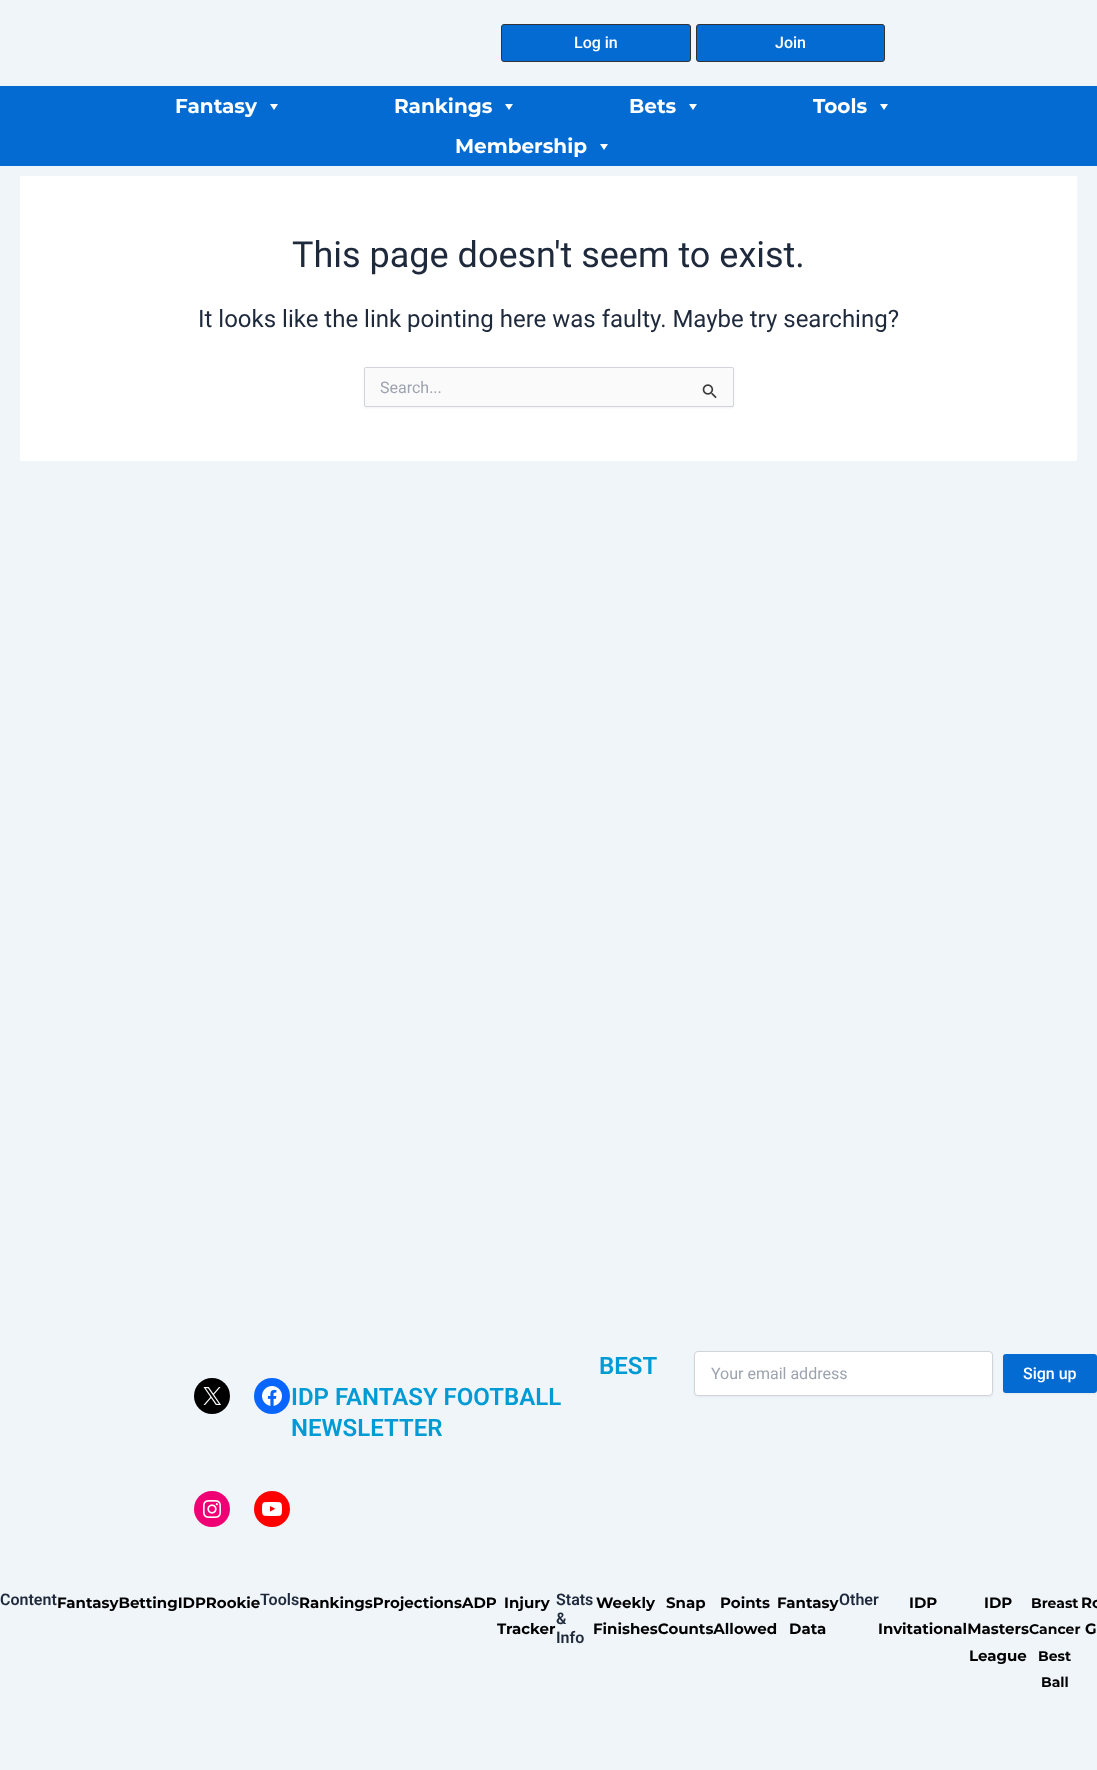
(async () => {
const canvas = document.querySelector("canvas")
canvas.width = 1097
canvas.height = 1770
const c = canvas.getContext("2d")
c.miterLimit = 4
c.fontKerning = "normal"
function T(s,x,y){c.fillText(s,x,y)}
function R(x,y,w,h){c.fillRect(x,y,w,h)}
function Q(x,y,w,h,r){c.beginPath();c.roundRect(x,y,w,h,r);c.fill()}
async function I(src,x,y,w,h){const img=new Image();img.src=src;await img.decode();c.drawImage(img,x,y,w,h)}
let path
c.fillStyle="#f0f5fa"
R(0,0,1097,1770)
c.fillStyle="#046bd2"
c.beginPath()
c.roundRect(501.5,24.5,189,37,2.5)
c.fill()
c.strokeStyle="#333"
c.stroke()
c.font="500 16px Roboto"
c.fillStyle="#fff"
T("Log in",574,48)
c.fillStyle="#046bd2"
c.beginPath()
c.roundRect(696.5,24.5,188,37,2.5)
c.fill()
c.stroke()
c.fillStyle="#fff"
T("Join",775,48)
c.fillStyle="#046bd2"
R(0,86,1097,80)
c.font="bold 20px Montserrat"
c.fillStyle="#fff"
T("Fantasy",175,113)
path = new Path2D("M278 104l-4 6l-4-6z")
c.fill(path)
T("Rankings",394,113)
path = new Path2D("M513 104l-4 6l-4-6z")
c.fill(path)
T("Bets",629,113)
path = new Path2D("M697 104l-4 6l-4-6z")
c.fill(path)
T("Tools",813,113)
path = new Path2D("M888 104l-4 6l-4-6z")
c.fill(path)
T("Membership",455,153)
path = new Path2D("M608 144l-4 6l-4-6z")
c.fill(path)
R(20,176,1057,285)
c.font="36px Roboto"
c.fillStyle="#1e293b"
T("This page doesn't seem to exist.",292,267)
c.font="24px Roboto"
T("It looks like the link pointing here was faulty. Maybe try searching?",198,327)
c.fillStyle="#0000000d"
c.filter="blur(1px)"
c.beginPath()
c.roundRect(364,368,370,40,2)
c.fill()
c.filter="none"
c.fillStyle="#fafafa"
c.beginPath()
c.roundRect(364.5,367.5,369,39,1.5)
c.fill()
c.strokeStyle="#d1d5db"
c.stroke()
c.font="16px Roboto"
c.fillStyle="#9ca3af"
T("Search...",380,393)
await I("1.png",702,384,15,15)
c.fillStyle="#000"
c.beginPath()
c.arc(212,1396,18,0,7)
c.fill()
await I("2.png",203,1387,18,18)
c.fillStyle="#0866ff"
c.beginPath()
c.arc(272,1396,18,0,7)
c.fill()
await I("3.png",262,1386,20,20)
c.fillStyle="#f00075"
c.beginPath()
c.arc(212,1509,18,0,7)
c.fill()
await I("4.png",203,1500,18,18)
c.fillStyle="#f00"
c.beginPath()
c.arc(272,1509,18,0,7)
c.fill()
await I("5.png",262,1502,20,14)
c.font="600 24px Roboto"
c.fillStyle="#009bd4"
T("BEST",599,1374)
T("IDP FANTASY FOOTBALL",291,1405)
T("NEWSLETTER",291,1436)
c.fillStyle="#0000000d"
c.filter="blur(1px)"
c.beginPath()
c.roundRect(694,1352,299,45,4)
c.fill()
c.filter="none"
c.fillStyle="#fff"
c.beginPath()
c.roundRect(694.5,1351.5,298,44,3.5)
c.fill()
c.stroke()
c.font="16px Roboto"
c.fillStyle="#9ca3af"
T("Your email address",711,1379)
c.fillStyle="#0000000d"
c.filter="blur(1px)"
c.beginPath()
c.roundRect(1003,1355,94,39,3)
c.fill()
c.filter="none"
c.fillStyle="#046bd2"
Q(1003,1354,94,39,3)
c.font="500 16px Roboto"
c.fillStyle="#fff"
T("Sign up",1023,1379)
c.font="600 16px Roboto"
c.fillStyle="#1e293b"
T("Content",0,1605)
c.font="bold 15px Montserrat"
c.fillStyle="#000"
T("FantasyBettingIDPRookie",57,1608)
c.font="600 16px Roboto"
c.fillStyle="#1e293b"
T("Tools",260,1605)
c.font="bold 15px Montserrat"
c.fillStyle="#000"
T("RankingsProjectionsADP",299,1608)
T("Injury",504,1608)
T("Tracker",497,1634)
c.font="600 16px Roboto"
c.fillStyle="#1e293b"
T("Stats",556,1605)
T("&",556,1624)
T("Info",556,1643)
c.font="bold 15px Montserrat"
c.fillStyle="#000"
T("Weekly",596,1608)
T("FinishesCountsAllowed",593,1634)
T("Snap",666,1608)
T("Points",720,1608)
T("Fantasy",777,1608)
T("Data",789,1634)
c.font="600 16px Roboto"
c.fillStyle="#1e293b"
T("Other",839,1605)
c.font="bold 15px Montserrat"
c.fillStyle="#000"
T("IDP",909,1608)
T("InvitationalMasters",878,1634)
T("IDP",984,1608)
T("League",969,1661)
c.font="bold 14px Montserrat"
T("Breast",1031,1608)
T("Cancer",1029,1634)
T("Best",1038,1661)
T("Ball",1041,1687)
c.font="bold 15px Montserrat"
T("Ro",1081,1608)
T("G",1085,1634)
})()
